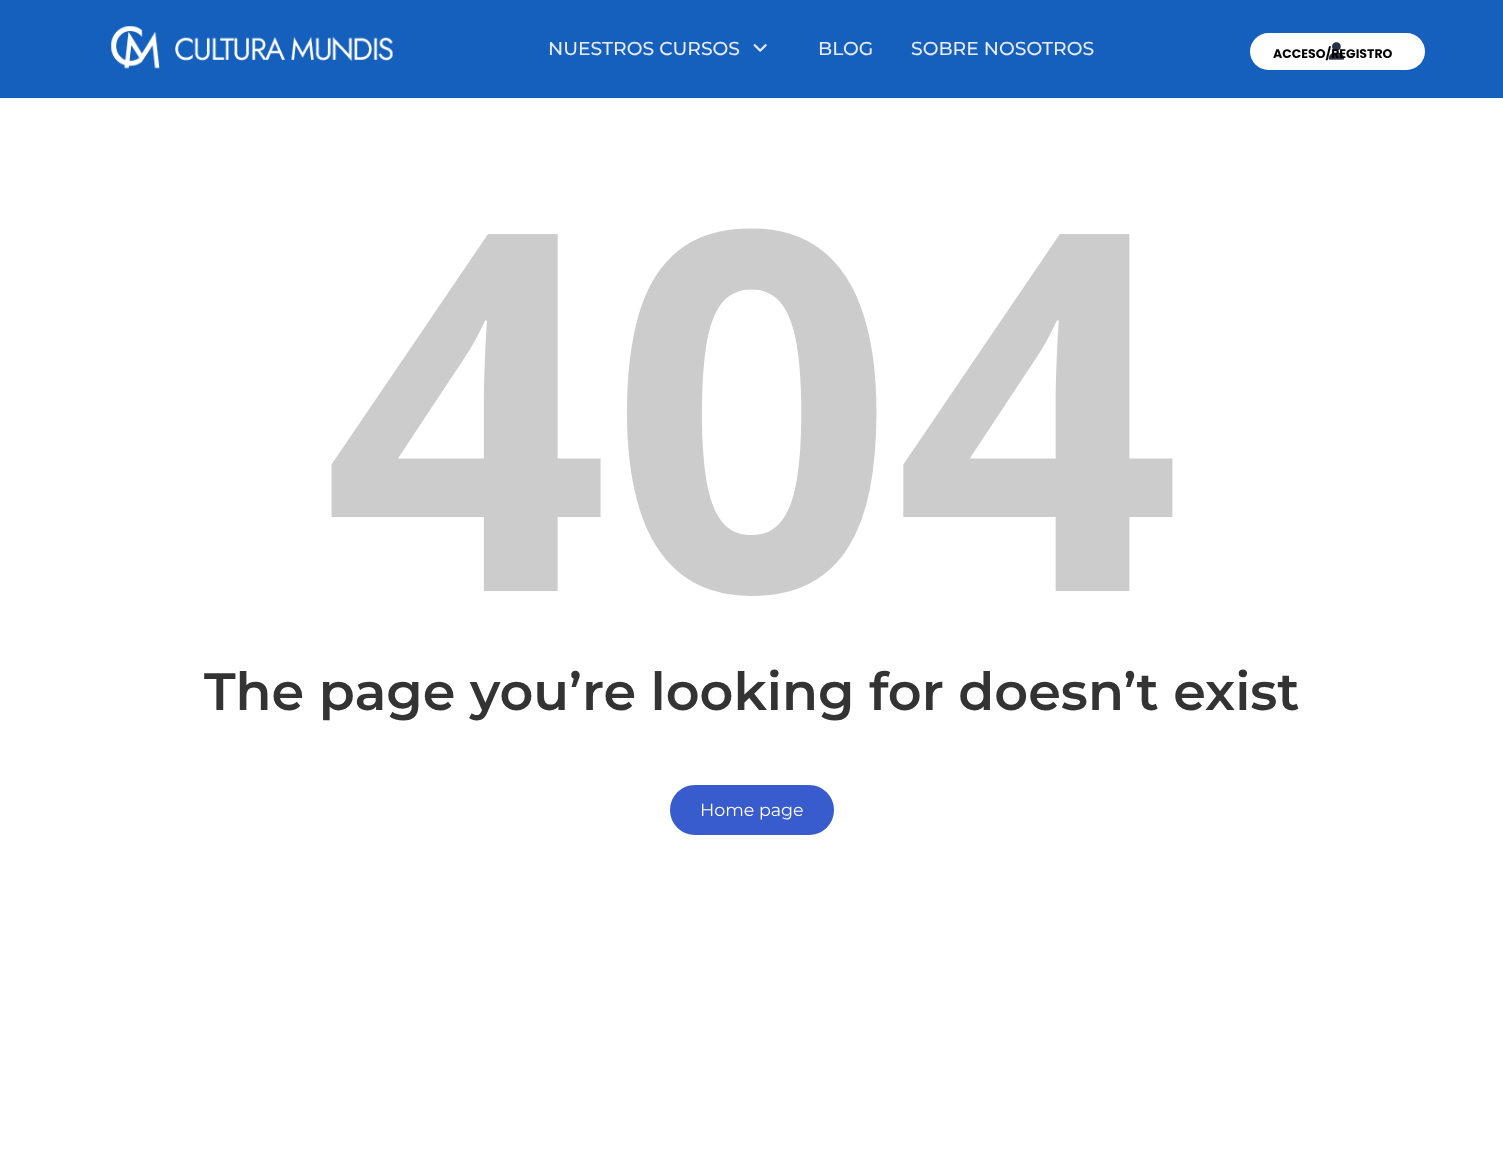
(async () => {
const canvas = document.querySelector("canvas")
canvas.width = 1503
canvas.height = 1167
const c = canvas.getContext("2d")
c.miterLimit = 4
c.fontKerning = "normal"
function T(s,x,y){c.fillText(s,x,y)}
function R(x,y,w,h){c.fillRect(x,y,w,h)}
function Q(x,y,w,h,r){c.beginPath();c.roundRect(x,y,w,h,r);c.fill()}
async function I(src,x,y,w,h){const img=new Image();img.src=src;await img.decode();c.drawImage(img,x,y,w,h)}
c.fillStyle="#fff"
R(0,0,1503,1167)
c.fillStyle="#1560bd"
R(0,0,1503,98)
await I("1.png",111,26,282,43)
c.font="500 18.75px Montserrat"
c.fillStyle="#e8eaee"
T("NUESTROS CURSOS",548,55)
await I("2.png",753,44,14,8)
T("BLOG",818,55)
T("SOBRE NOSOTROS",911,55)
c.fillStyle="#fff"
Q(1250,33,175,37,18.5)
await I("3.png",1328,42,17,18)
c.font="bold 12.5px Poppins"
c.fillStyle="#000"
T("ACCESO/REGISTRO",1273,58)
c.font="bold 500px Open Sans"
c.fillStyle="#ccc"
T("404",323,591)
c.font="600 52.5px Montserrat"
c.fillStyle="#333"
T("The page you’re looking for doesn’t exist",204,710)
c.fillStyle="#385bce"
c.beginPath()
c.roundRect(671.5,786.5,161,47,23.5)
c.fill()
c.strokeStyle="#385bce"
c.lineWidth=3
c.stroke()
c.font="17.5px Montserrat"
c.fillStyle="#fff"
T("Home page",700,816)
})()
